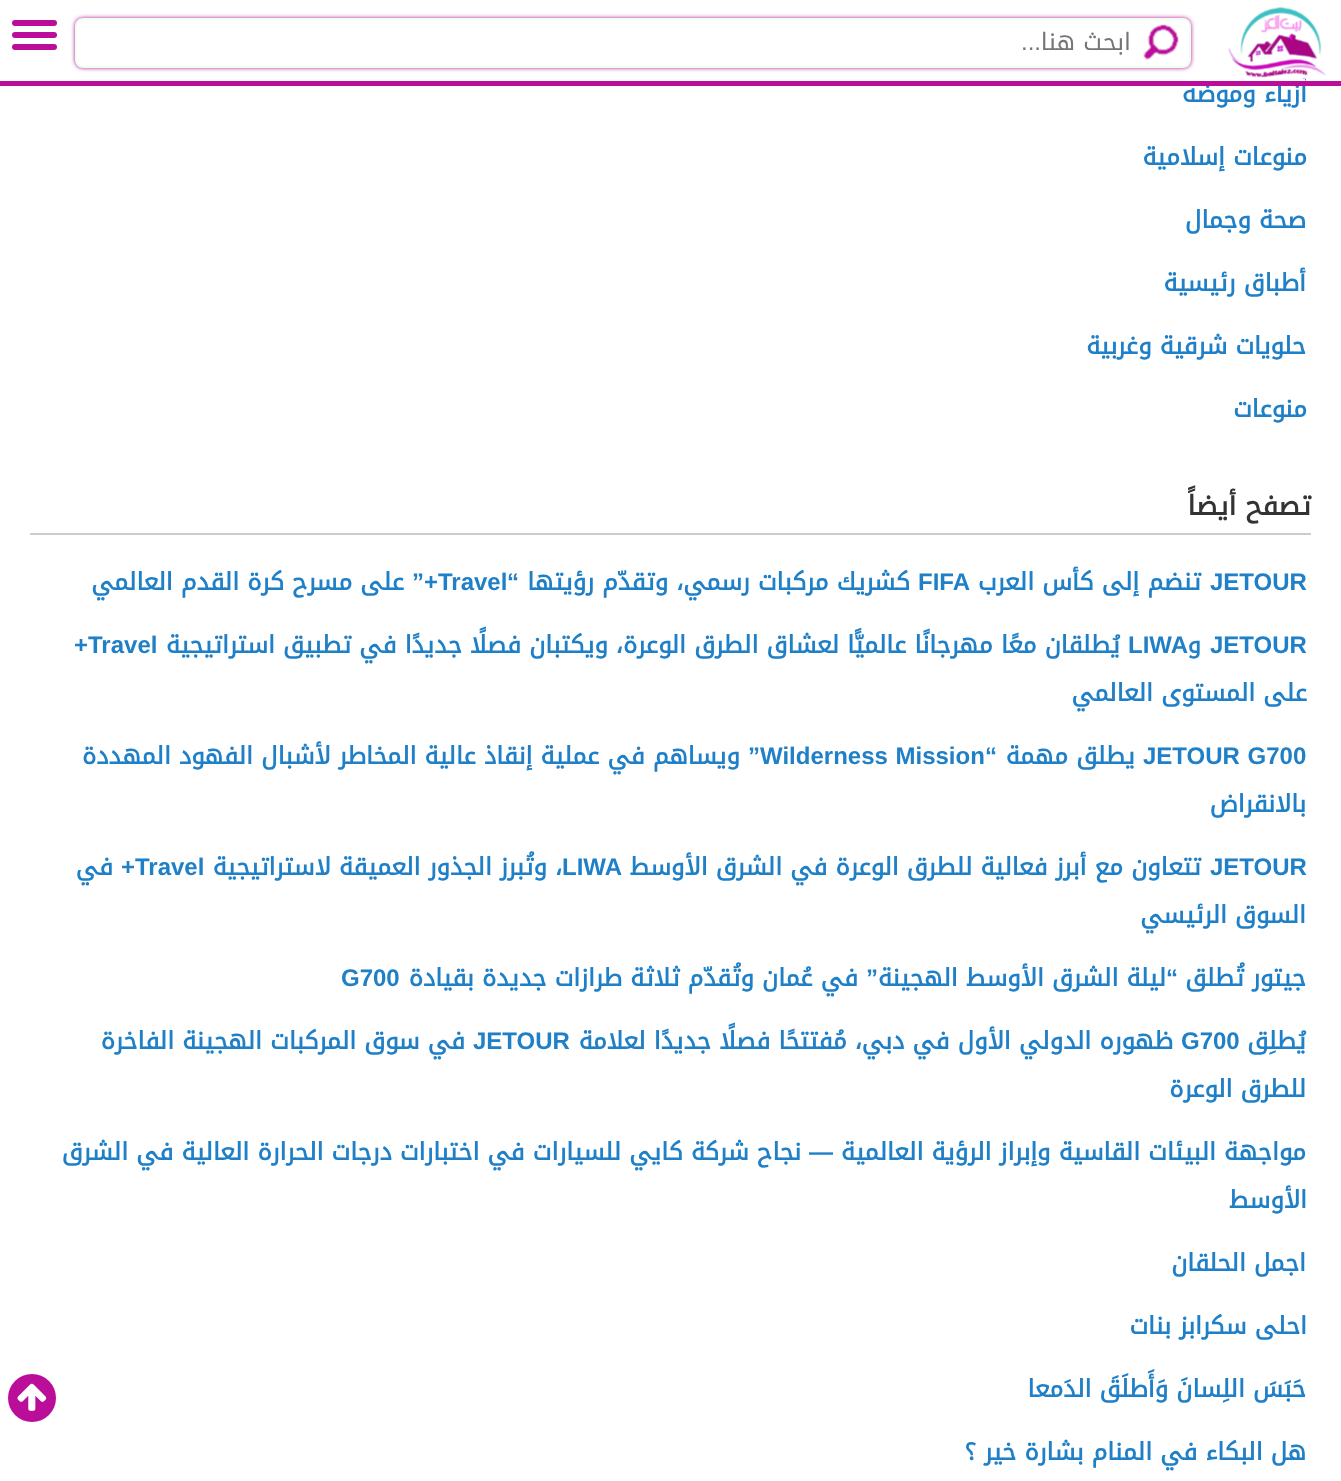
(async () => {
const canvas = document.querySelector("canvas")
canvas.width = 1341
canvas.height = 1481
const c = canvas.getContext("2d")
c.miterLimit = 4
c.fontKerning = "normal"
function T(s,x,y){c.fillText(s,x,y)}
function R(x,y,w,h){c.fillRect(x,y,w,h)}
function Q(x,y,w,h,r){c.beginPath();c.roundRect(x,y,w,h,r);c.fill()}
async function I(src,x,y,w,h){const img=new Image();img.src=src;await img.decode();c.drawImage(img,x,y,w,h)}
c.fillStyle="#fff"
R(0,0,1341,1481)
c.direction="rtl"
c.font="bold 24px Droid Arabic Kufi"
c.fillStyle="#2080c7"
T("أزياء وموضه",1307,102)
c.fillStyle="#fff"
R(1301,79,4,2)
c.fillStyle="#ba0d9a"
R(0,81,1341,5)
await I("1.png",1228,7,98,71)
c.filter="blur(2px)"
c.beginPath()
c.roundRect(75,18,1116,50,8)
c.fill()
c.filter="none"
c.fillStyle="#fff"
c.beginPath()
c.roundRect(76,19,1114,48,7)
c.fill()
c.strokeStyle="#efe"
c.lineWidth=2
c.stroke()
await I("2.png",1143,24,36,36)
c.font="24px Droid Arabic Kufi"
c.fillStyle="#757575"
T("ابحث هنا",1131,50)
c.font="24px Liberation Sans"
T("...",1041,50)
c.fillStyle="#ba0d9a"
Q(12,20,45,6,3)
Q(12,32,45,6,3)
Q(12,44,45,6,3)
c.font="bold 24px Droid Arabic Kufi"
c.fillStyle="#2080c7"
T("منوعات إسلامية",1307,165)
T("صحة وجمال",1306,228)
T("أطباق رئيسية",1306,291)
T("حلويات شرقية وغربية",1306,354)
T("منوعات",1307,417)
c.fillStyle="#ccc"
R(30,533,1281,2)
c.font="bold 27px Droid Arabic Kufi"
c.fillStyle="#333"
T("تصفح أيضاً",1311,515)
c.direction="ltr"
c.font="bold 24px Liberation Sans"
c.fillStyle="#2080c7"
T("JETOUR",1210,590)
c.direction="rtl"
c.font="bold 24px Droid Arabic Kufi"
T("تنضم إلى كأس العرب",1201,590)
c.direction="ltr"
c.font="bold 24px Liberation Sans"
T("FIFA",918,590)
c.direction="rtl"
c.font="bold 24px Droid Arabic Kufi"
T("كشريك مركبات رسمي، وتقدّم رؤيتها",910,590)
c.font="bold 24px Liberation Sans"
T("“",519,590)
c.direction="ltr"
T("Travel",438,590)
c.direction="rtl"
T("+”",438,590)
c.font="bold 24px Droid Arabic Kufi"
T("على مسرح كرة القدم العالمي",404,590)
c.direction="ltr"
c.font="bold 24px Liberation Sans"
T("JETOUR",1210,653)
c.direction="rtl"
c.font="bold 24px Droid Arabic Kufi"
T("و",1201,653)
c.direction="ltr"
c.font="bold 24px Liberation Sans"
T("LIWA",1128,653)
c.direction="rtl"
c.font="bold 24px Droid Arabic Kufi"
T("يُطلقان معًا مهرجانًا عالميًّا لعشاق الطرق الوعرة، ويكتبان فصلًا جديدًا في تطبيق استراتيجية",1120,653)
c.direction="ltr"
c.font="bold 24px Liberation Sans"
T("+Travel",74,653)
c.direction="rtl"
c.font="bold 24px Droid Arabic Kufi"
T("على المستوى العالمي",1307,701)
c.wordSpacing="1px"
c.direction="ltr"
c.font="bold 24px Liberation Sans"
T("JETOUR G700",1143,764)
c.wordSpacing="0px"
c.direction="rtl"
c.font="bold 24px Droid Arabic Kufi"
T("يطلق مهمة",1135,764)
c.font="bold 24px Liberation Sans"
T("“",997,764)
c.wordSpacing="1px"
c.direction="ltr"
T("Wilderness Mission",760,764)
c.wordSpacing="0px"
c.direction="rtl"
T("”",760,764)
c.font="bold 24px Droid Arabic Kufi"
T("ويساهم في عملية إنقاذ عالية المخاطر لأشبال الفهود المهددة",740,764)
T("بالانقراض",1306,812)
c.direction="ltr"
c.font="bold 24px Liberation Sans"
T("JETOUR",1210,875)
c.direction="rtl"
c.font="bold 24px Droid Arabic Kufi"
T("تتعاون مع أبرز فعالية للطرق الوعرة في الشرق الأوسط",1201,875)
c.direction="ltr"
c.font="bold 24px Liberation Sans"
T("LIWA",562,875)
c.direction="rtl"
c.font="bold 24px Droid Arabic Kufi"
T("، وتُبرز الجذور العميقة لاستراتيجية",562,875)
c.direction="ltr"
c.font="bold 24px Liberation Sans"
T("Travel",135,875)
c.direction="rtl"
T("+",135,875)
c.font="bold 24px Droid Arabic Kufi"
T("في",113,875)
T("السوق الرئيسي",1306,923)
T("جيتور تُطلق",1306,986)
c.font="bold 24px Liberation Sans"
T("“",1178,986)
c.font="bold 24px Droid Arabic Kufi"
T("ليلة الشرق الأوسط الهجينة",1166,986)
c.font="bold 24px Liberation Sans"
T("”",878,986)
c.font="bold 24px Droid Arabic Kufi"
T("في عُمان وتُقدّم ثلاثة طرازات جديدة بقيادة",858,986)
c.direction="ltr"
c.font="bold 24px Liberation Sans"
T("G700",341,986)
c.direction="rtl"
c.font="bold 24px Droid Arabic Kufi"
T("يُطلِق",1306,1049)
c.direction="ltr"
c.font="bold 24px Liberation Sans"
T("G700",1181,1049)
c.direction="rtl"
c.font="bold 24px Droid Arabic Kufi"
T("ظهوره الدولي الأول في دبي، مُفتتحًا فصلًا جديدًا لعلامة",1173,1049)
c.direction="ltr"
c.font="bold 24px Liberation Sans"
T("JETOUR",473,1049)
c.direction="rtl"
c.font="bold 24px Droid Arabic Kufi"
T("في سوق المركبات الهجينة الفاخرة",465,1049)
T("للطرق الوعرة",1306,1097)
T("مواجهة البيئات القاسية وإبراز الرؤية العالمية",1306,1160)
c.font="bold 24px Liberation Sans"
T("—",833,1160)
c.font="bold 24px Droid Arabic Kufi"
T("نجاح شركة كايي للسيارات في اختبارات درجات الحرارة العالية في الشرق",801,1160)
T("الأوسط",1307,1208)
T("اجمل الحلقان",1306,1271)
T("احلى سكرابز بنات",1307,1334)
T("حَبَسَ اللِسانَ وَأَطلَقَ الدَمعا",1306,1397)
T("هل البكاء في المنام بشارة خير ؟",1306,1460)
c.fillStyle="#ba0d9a"
c.beginPath()
c.arc(32,1398,24,0,7)
c.fill()
await I("3.png",17,1383,30,28)
})()
